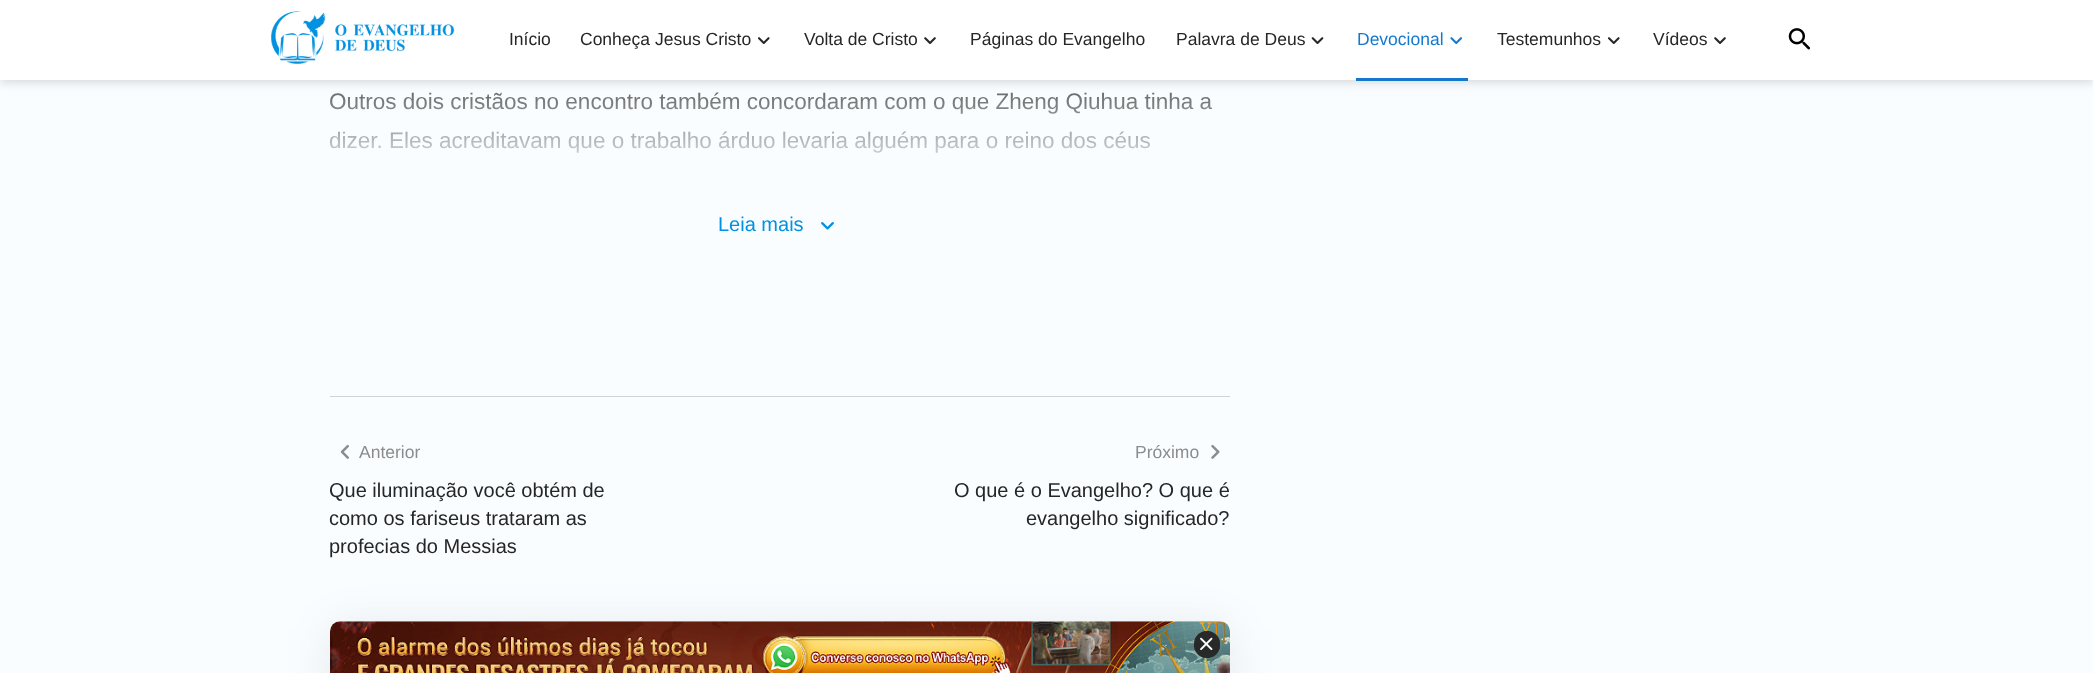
(async () => {
const canvas = document.querySelector("canvas")
canvas.width = 2093
canvas.height = 673
const c = canvas.getContext("2d")
c.miterLimit = 4
c.fontKerning = "normal"
function T(s,x,y){c.fillText(s,x,y)}
function R(x,y,w,h){c.fillRect(x,y,w,h)}
function Q(x,y,w,h,r){c.beginPath();c.roundRect(x,y,w,h,r);c.fill()}
async function I(src,x,y,w,h){const img=new Image();img.src=src;await img.decode();c.drawImage(img,x,y,w,h)}
let gradient
c.fillStyle="#fafdff"
R(0,0,2093,673)
c.font="22.5px Liberation Sans"
c.fillStyle="#262626"
T("Outros dois cristãos no encontro também concordaram com o que Zheng Qiuhua tinha a",329,109)
T("dizer. Eles acreditavam que o trabalho árduo levaria alguém para o reino dos céus",329,148)
gradient = c.createLinearGradient(780,34,780,184)
gradient.addColorStop(.1,"#fafdff00")
gradient.addColorStop(1,"#fafdff")
c.fillStyle = gradient
R(330,92,883,61)
c.fillStyle="#262d3329"
c.filter="blur(5px)"
c.beginPath()
c.rect(0,3,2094,80)
c.fill()
c.filter="none"
c.fillStyle="#fff"
R(0,0,2093,80)
await I("1.png",271,11,184,54)
c.font="17.5px Liberation Sans"
c.fillStyle="#262626"
T("Início",509,45)
T("Conheça Jesus Cristo",580,45)
await I("2.png",758,37,12,7)
T("Volta de Cristo",804,45)
await I("3.png",924,37,12,7)
T("Páginas do Evangelho",970,45)
T("Palavra de Deus",1176,45)
await I("4.png",1311,37,13,7)
c.fillStyle="#1479cc"
T("Devocional",1357,45)
await I("5.png",1450,37,13,7)
R(1356,78,112,3)
c.fillStyle="#262626"
T("Testemunhos",1497,45)
await I("2.png",1608,37,12,7)
T("Vídeos",1653,45)
await I("3.png",1714,37,12,7)
await I("6.png",1788,28,22,22)
c.font="20px Liberation Sans"
c.fillStyle="#0091e0"
T("Leia mais",718,231)
await I("7.png",821,222,13,8)
c.fillStyle="#cfd4d3"
R(330,396,900,1)
await I("8.png",340,444,9,15)
c.font="17.5px Liberation Sans"
c.fillStyle="#8c8c8c"
T("Anterior",359,458)
c.font="20px Liberation Sans"
c.fillStyle="#262626"
T("Que iluminação você obtém de",329,497)
T("como os fariseus trataram as",329,525)
T("profecias do Messias",329,553)
c.font="17.5px Liberation Sans"
c.fillStyle="#8c8c8c"
T("Próximo",1135,458)
await I("9.png",1211,444,9,15)
c.font="20px Liberation Sans"
c.fillStyle="#262626"
T("O que é o Evangelho? O que é",954,497)
T("evangelho significado?",1026,525)
c.fillStyle="#00000014"
c.filter="blur(22.5px)"
c.beginPath()
c.roundRect(330,626,900,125,10)
c.fill()
c.filter="none"
await I("10.png",330,621,900,52)
c.fillStyle="#262626cc"
Q(1194,631,26,27,13)
await I("11.png",1200,637,13,13)
Q(1194,631,26,27,13)
await I("12.png",1200,637,13,13)
})()
